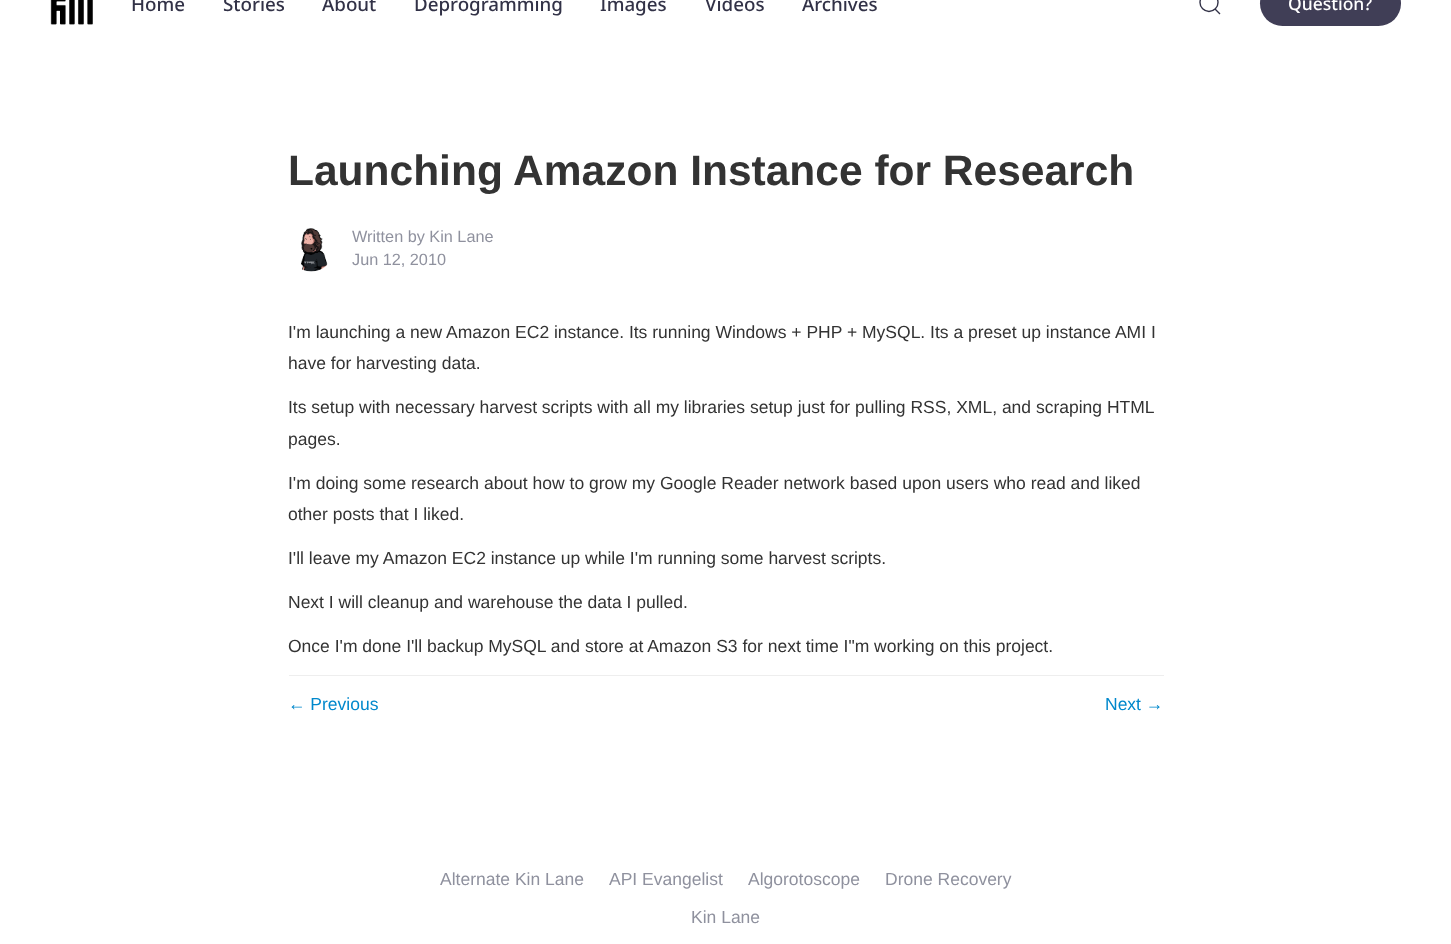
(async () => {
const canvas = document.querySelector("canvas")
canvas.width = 1451
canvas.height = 944
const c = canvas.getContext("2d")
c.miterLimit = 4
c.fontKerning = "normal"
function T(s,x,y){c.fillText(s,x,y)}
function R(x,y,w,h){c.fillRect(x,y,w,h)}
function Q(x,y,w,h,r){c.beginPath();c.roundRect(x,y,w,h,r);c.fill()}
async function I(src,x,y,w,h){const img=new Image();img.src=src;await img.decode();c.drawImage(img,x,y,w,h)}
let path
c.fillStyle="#fff"
R(0,0,1451,944)
await I("1.png",50,0,43,25)
c.font="500 18.75px Noto Sans"
c.fillStyle="#323247"
T("Home",131,11)
T("Stories",223,11)
T("About",322,11)
T("Deprogramming",414,11)
T("Images",600,11)
T("Videos",705,11)
T("Archives",802,11)
c.beginPath()
c.arc(1209,2.5,9,0,7)
c.strokeStyle="#323247"
c.lineWidth=1.4
c.stroke()
path = new Path2D("M1215 9l5 5z")
c.stroke(path)
c.fillStyle="#403e56"
Q(1260,-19,141,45,22.5)
c.font="500 17.5px Noto Sans"
c.fillStyle="#fff"
T("Question?",1288,10)
c.font="bold 42.5px Liberation Sans"
c.fillStyle="#333"
T("Launching Amazon Instance for Research",288,185)
await I("2.png",301,228,27,44)
c.font="16.25px Liberation Sans"
c.fillStyle="#8f919e"
T("Written by Kin Lane",352,242)
T("Jun 12, 2010",352,265)
c.font="17.5px Liberation Sans"
c.fillStyle="#333"
T("I'm launching a new Amazon EC2 instance. Its running Windows + PHP + MySQL. Its a preset up instance AMI I",288,338)
T("have for harvesting data.",288,369)
T("Its setup with necessary harvest scripts with all my libraries setup just for pulling RSS, XML, and scraping HTML",288,413)
T("pages.",288,445)
T("I'm doing some research about how to grow my Google Reader network based upon users who read and liked",288,489)
T("other posts that I liked.",288,520)
T("I'll leave my Amazon EC2 instance up while I'm running some harvest scripts.",288,564)
T("Next I will cleanup and warehouse the data I pulled.",288,608)
T("Once I'm done I'll backup MySQL and store at Amazon S3 for next time I\"m working on this project.",288,652)
c.fillStyle="#eee"
R(289,675,875,1)
c.fillStyle="#08c"
T("← Previous",288,710)
T("Next →",1105,710)
c.fillStyle="#8f919e"
T("Alternate Kin Lane",440,885)
T("API Evangelist",609,885)
T("Algorotoscope",748,885)
T("Drone Recovery",885,885)
T("Kin Lane",691,923)
})()
